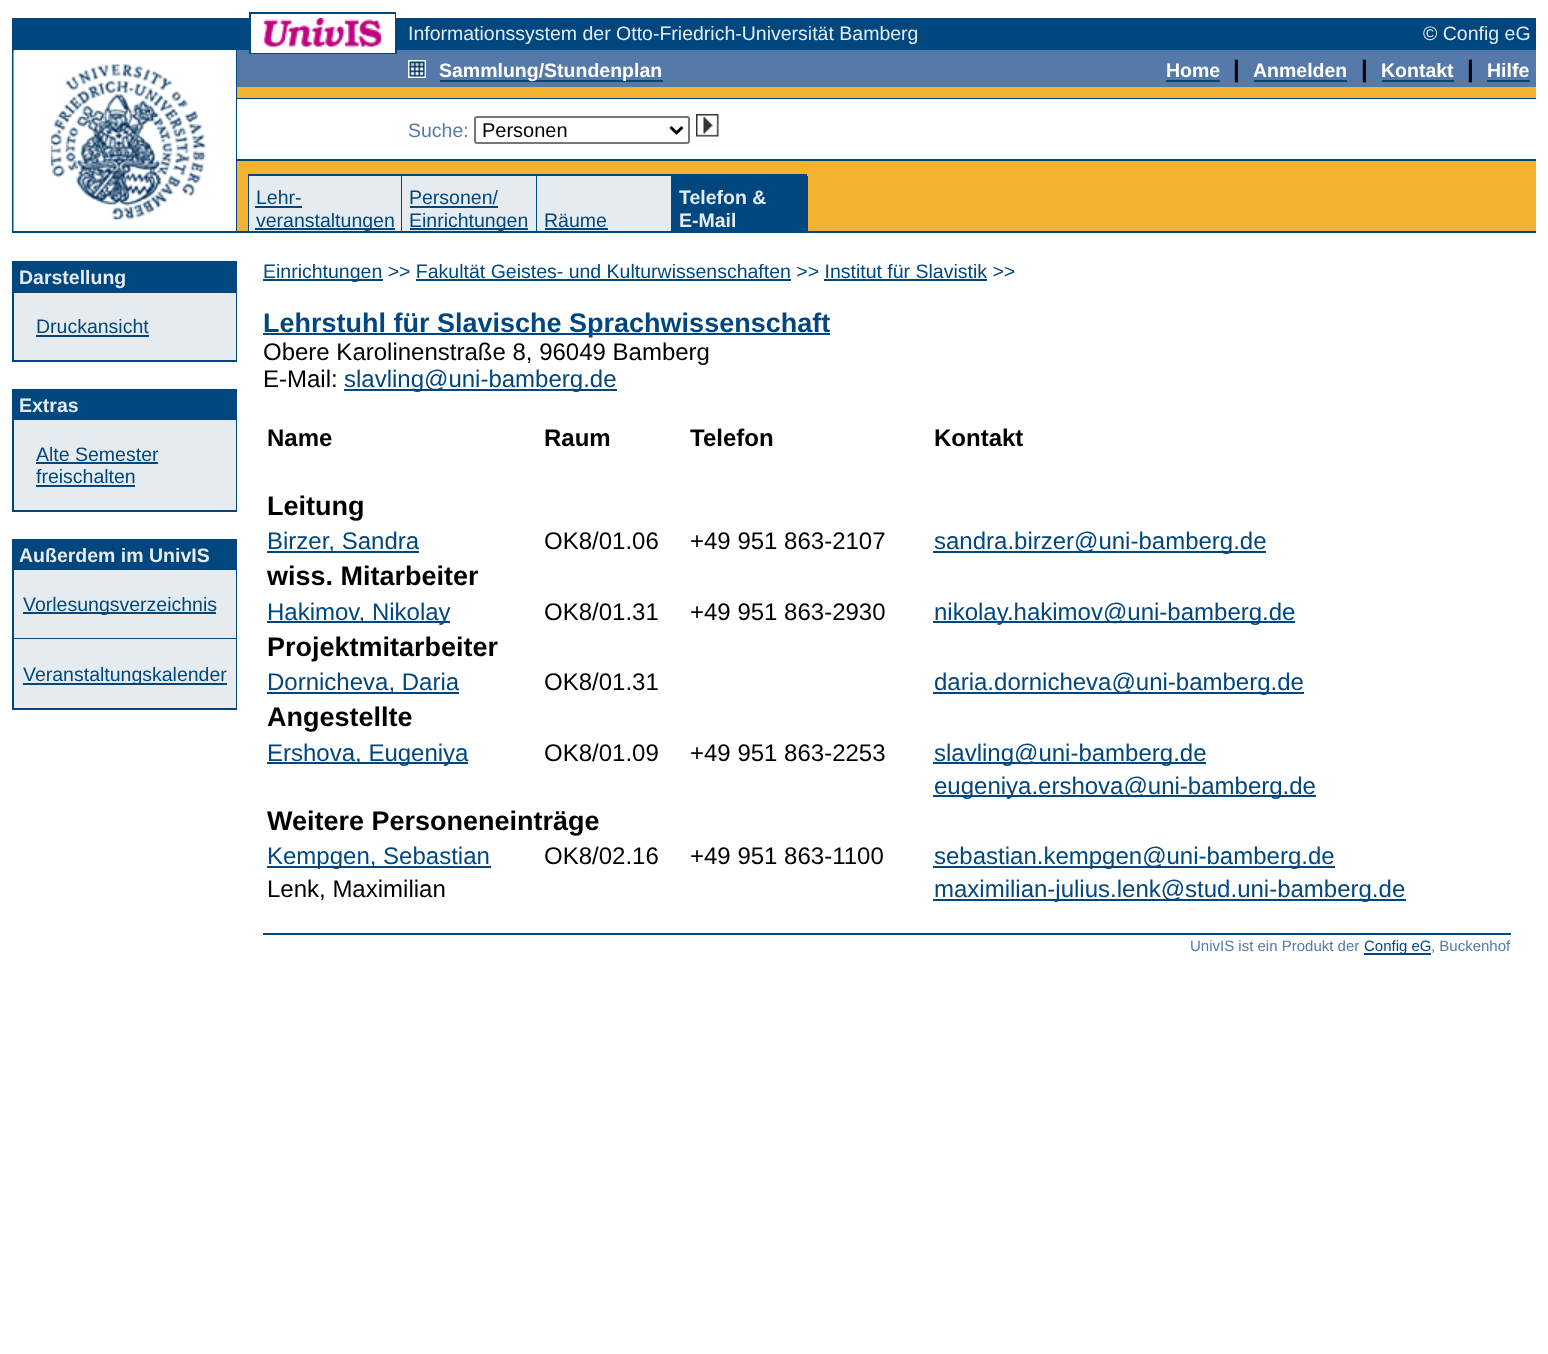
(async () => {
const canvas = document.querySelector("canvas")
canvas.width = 1548
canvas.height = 1354
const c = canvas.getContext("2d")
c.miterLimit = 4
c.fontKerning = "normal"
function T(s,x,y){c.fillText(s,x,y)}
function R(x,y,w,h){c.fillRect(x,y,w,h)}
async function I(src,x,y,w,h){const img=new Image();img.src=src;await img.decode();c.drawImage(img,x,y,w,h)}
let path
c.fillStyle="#fff"
R(0,0,1548,1354)
c.fillStyle="#00467f"
R(249,12,148,2)
c.fillStyle="#fff"
R(396,12,1,2)
c.fillStyle="#00467f"
R(249,14,2,5)
R(395,14,1,34)
R(12,18,239,30)
await I("1.png",263,18,120,29)
R(396,18,1140,30)
c.font="19.5px Liberation Sans"
c.fillStyle="#e5ebef"
T("Informationssystem der Otto-Friedrich-Universität Bamberg",408,40)
T("© Config eG",1423,40)
c.fillStyle="#00467f"
R(12,48,1524,2)
c.fillStyle="#fff"
R(251,48,144,2)
c.fillStyle="#00467f"
R(12,50,2,183)
R(236,50,1,181)
await I("2.png",13,51,193,180)
c.fillStyle="#f3b231"
R(237,87,1299,144)
c.fillStyle="#557aa9"
R(237,50,1299,3)
c.fillStyle="#00467f"
R(249,50,2,3)
c.fillStyle="#fff"
R(251,50,144,3)
c.fillStyle="#00467f"
R(395,50,2,3)
c.fillStyle="#557aa9"
R(237,53,1299,3)
c.fillStyle="#00467f"
R(249,53,148,1)
c.fillStyle="#557aa9"
R(237,56,1299,31)
await I("3.png",408,60,18,18)
c.fillStyle="#00467f"
R(440,80,223,2)
c.font="bold 19.5px Liberation Sans"
c.fillStyle="#fff"
T("Sammlung/Stundenplan",439,77)
T("Home",1166,77)
c.fillStyle="#00467f"
R(1166,80,54,2)
c.font="bold 24px Liberation Sans"
c.fillStyle="#000"
T("|",1233,77)
c.font="bold 19.5px Liberation Sans"
c.fillStyle="#fff"
T("Anmelden",1253,77)
c.fillStyle="#00467f"
R(1254,80,93,2)
c.font="bold 24px Liberation Sans"
c.fillStyle="#000"
T("|",1361,77)
c.font="bold 19.5px Liberation Sans"
c.fillStyle="#fff"
T("Kontakt",1381,77)
c.fillStyle="#00467f"
R(1382,80,72,2)
c.font="bold 24px Liberation Sans"
c.fillStyle="#000"
T("|",1467,77)
c.font="bold 19.5px Liberation Sans"
c.fillStyle="#fff"
T("Hilfe",1487,77)
c.fillStyle="#00467f"
R(1487,80,43,2)
R(237,98,1299,1)
c.fillStyle="#fff"
R(237,99,1299,60)
c.font="19.5px Liberation Sans"
c.fillStyle="#557aa9"
T("Suche:",408,137)
c.beginPath()
c.roundRect(475,117,214,26,2)
c.strokeStyle="#767676"
c.lineWidth=2
c.stroke()
path = new Path2D("M670.5 127l6 6l6-6")
c.strokeStyle="#000"
c.lineWidth=3
c.stroke(path)
c.font="20px Liberation Sans"
c.fillStyle="#000"
T("Personen",482,137)
await I("4.png",696,114,23,23)
c.fillStyle="#00467f"
R(237,159,1299,2)
R(248,174,559,2)
R(248,176,1,55)
c.fillStyle="#e5ebef"
R(249,176,152,55)
c.fillStyle="#00467f"
R(401,176,1,55)
c.fillStyle="#e5ebef"
R(402,176,134,55)
c.fillStyle="#00467f"
R(536,176,1,55)
c.fillStyle="#e5ebef"
R(537,176,134,55)
c.fillStyle="#00467f"
R(671,176,137,55)
c.font="19.5px Liberation Sans"
T("Lehr-",256,204)
R(255,206,47,2)
R(255,228,140,2)
R(14,231,1522,2)
T("veranstaltungen",256,227)
T("Personen/",409,204)
R(410,206,88,2)
R(410,228,118,2)
T("Einrichtungen",409,227)
T("Räume",544,227)
R(545,228,63,2)
c.font="bold 19.5px Liberation Sans"
c.fillStyle="#e5ebef"
T("Telefon &",679,204)
T("E-Mail",679,227)
c.fillStyle="#00467f"
R(12,261,2,101)
R(14,261,222,32)
R(236,261,1,101)
c.fillStyle="#e5ebef"
T("Darstellung",19,284)
R(14,293,222,67)
c.font="19.5px Liberation Sans"
c.fillStyle="#00467f"
T("Druckansicht",36,333)
R(36,335,113,2)
R(14,360,222,2)
R(12,389,2,123)
R(14,389,222,31)
R(236,389,1,123)
c.font="bold 19.5px Liberation Sans"
c.fillStyle="#e5ebef"
T("Extras",19,412)
R(14,420,222,90)
c.font="19.5px Liberation Sans"
c.fillStyle="#00467f"
T("Alte Semester",36,461)
R(36,462,122,2)
T("freischalten",36,483)
R(36,485,99,2)
R(14,510,222,2)
R(12,539,2,171)
R(14,539,222,31)
R(236,539,1,171)
c.font="bold 19.5px Liberation Sans"
c.fillStyle="#e5ebef"
T("Außerdem im UnivIS",19,562)
R(14,570,222,68)
c.fillStyle="#00467f"
R(23,612,193,2)
c.font="19.5px Liberation Sans"
T("Vorlesungsverzeichnis",23,611)
R(14,638,222,1)
c.fillStyle="#e5ebef"
R(14,639,222,2)
R(14,641,222,67)
c.fillStyle="#00467f"
R(23,683,204,2)
T("Veranstaltungskalender",23,681)
R(14,708,222,2)
R(263,279,120,2)
T("Einrichtungen >> Fakultät Geistes- und Kulturwissenschaften >> Institut für Slavistik >>",263,278)
R(416,279,375,2)
R(824,279,163,2)
R(263,333,567,2)
c.font="bold 27px Liberation Sans"
T("Lehrstuhl für Slavische Sprachwissenschaft",263,332)
c.font="24px Liberation Sans"
c.fillStyle="#000"
T("Obere Karolinenstraße 8, 96049 Bamberg",263,360)
T("E-Mail:",263,387)
c.fillStyle="#00467f"
R(344,389,273,2)
T("slavling@uni-bamberg.de",344,387)
c.font="bold 24px Liberation Sans"
c.fillStyle="#000"
T("Name",267,446)
T("Raum",544,446)
T("Telefon",690,446)
T("Kontakt",934,446)
c.font="bold 27px Liberation Sans"
T("Leitung",267,515)
c.fillStyle="#00467f"
R(267,551,152,2)
c.font="24px Liberation Sans"
T("Birzer, Sandra",267,549)
c.fillStyle="#000"
T("OK8/01.06",544,549)
T("+49 951 863-2107",690,549)
c.fillStyle="#00467f"
R(933,551,333,2)
T("sandra.birzer@uni-bamberg.de",934,549)
c.font="bold 27px Liberation Sans"
c.fillStyle="#000"
T("wiss. Mitarbeiter",267,585)
c.fillStyle="#00467f"
R(267,621,183,2)
c.font="24px Liberation Sans"
T("Hakimov, Nikolay",267,620)
c.fillStyle="#000"
T("OK8/01.31",544,620)
T("+49 951 863-2930",690,620)
c.fillStyle="#00467f"
R(933,621,362,2)
T("nikolay.hakimov@uni-bamberg.de",934,620)
c.font="bold 27px Liberation Sans"
c.fillStyle="#000"
T("Projektmitarbeiter",267,656)
c.fillStyle="#00467f"
R(267,692,192,2)
c.font="24px Liberation Sans"
T("Dornicheva, Daria",267,690)
c.fillStyle="#000"
T("OK8/01.31",544,690)
c.fillStyle="#00467f"
R(933,692,371,2)
T("daria.dornicheva@uni-bamberg.de",934,690)
c.font="bold 27px Liberation Sans"
c.fillStyle="#000"
T("Angestellte",267,726)
c.fillStyle="#00467f"
R(267,762,201,2)
c.font="24px Liberation Sans"
T("Ershova, Eugeniya",267,761)
c.fillStyle="#000"
T("OK8/01.09",544,761)
T("+49 951 863-2253",690,761)
c.fillStyle="#00467f"
R(933,762,273,2)
T("slavling@uni-bamberg.de",934,761)
R(933,795,383,2)
T("eugeniya.ershova@uni-bamberg.de",934,794)
c.font="bold 27px Liberation Sans"
c.fillStyle="#000"
T("Weitere Personeneinträge",267,830)
c.fillStyle="#00467f"
R(267,866,224,2)
c.font="24px Liberation Sans"
T("Kempgen, Sebastian",267,864)
c.fillStyle="#000"
T("OK8/02.16",544,864)
T("+49 951 863-1100",690,864)
c.fillStyle="#00467f"
R(933,866,402,2)
T("sebastian.kempgen@uni-bamberg.de",934,864)
c.fillStyle="#000"
T("Lenk, Maximilian",267,897)
c.fillStyle="#00467f"
R(933,899,473,2)
T("maximilian-julius.lenk@stud.uni-bamberg.de",934,897)
R(263,933,1248,2)
c.font="15px Liberation Sans"
c.fillStyle="#557aa9"
T("UnivIS ist ein Produkt der",1190,951)
c.fillStyle="#00467f"
R(1364,953,67,2)
T("Config eG",1364,951)
c.fillStyle="#557aa9"
T(", Buckenhof",1431,951)
})()
